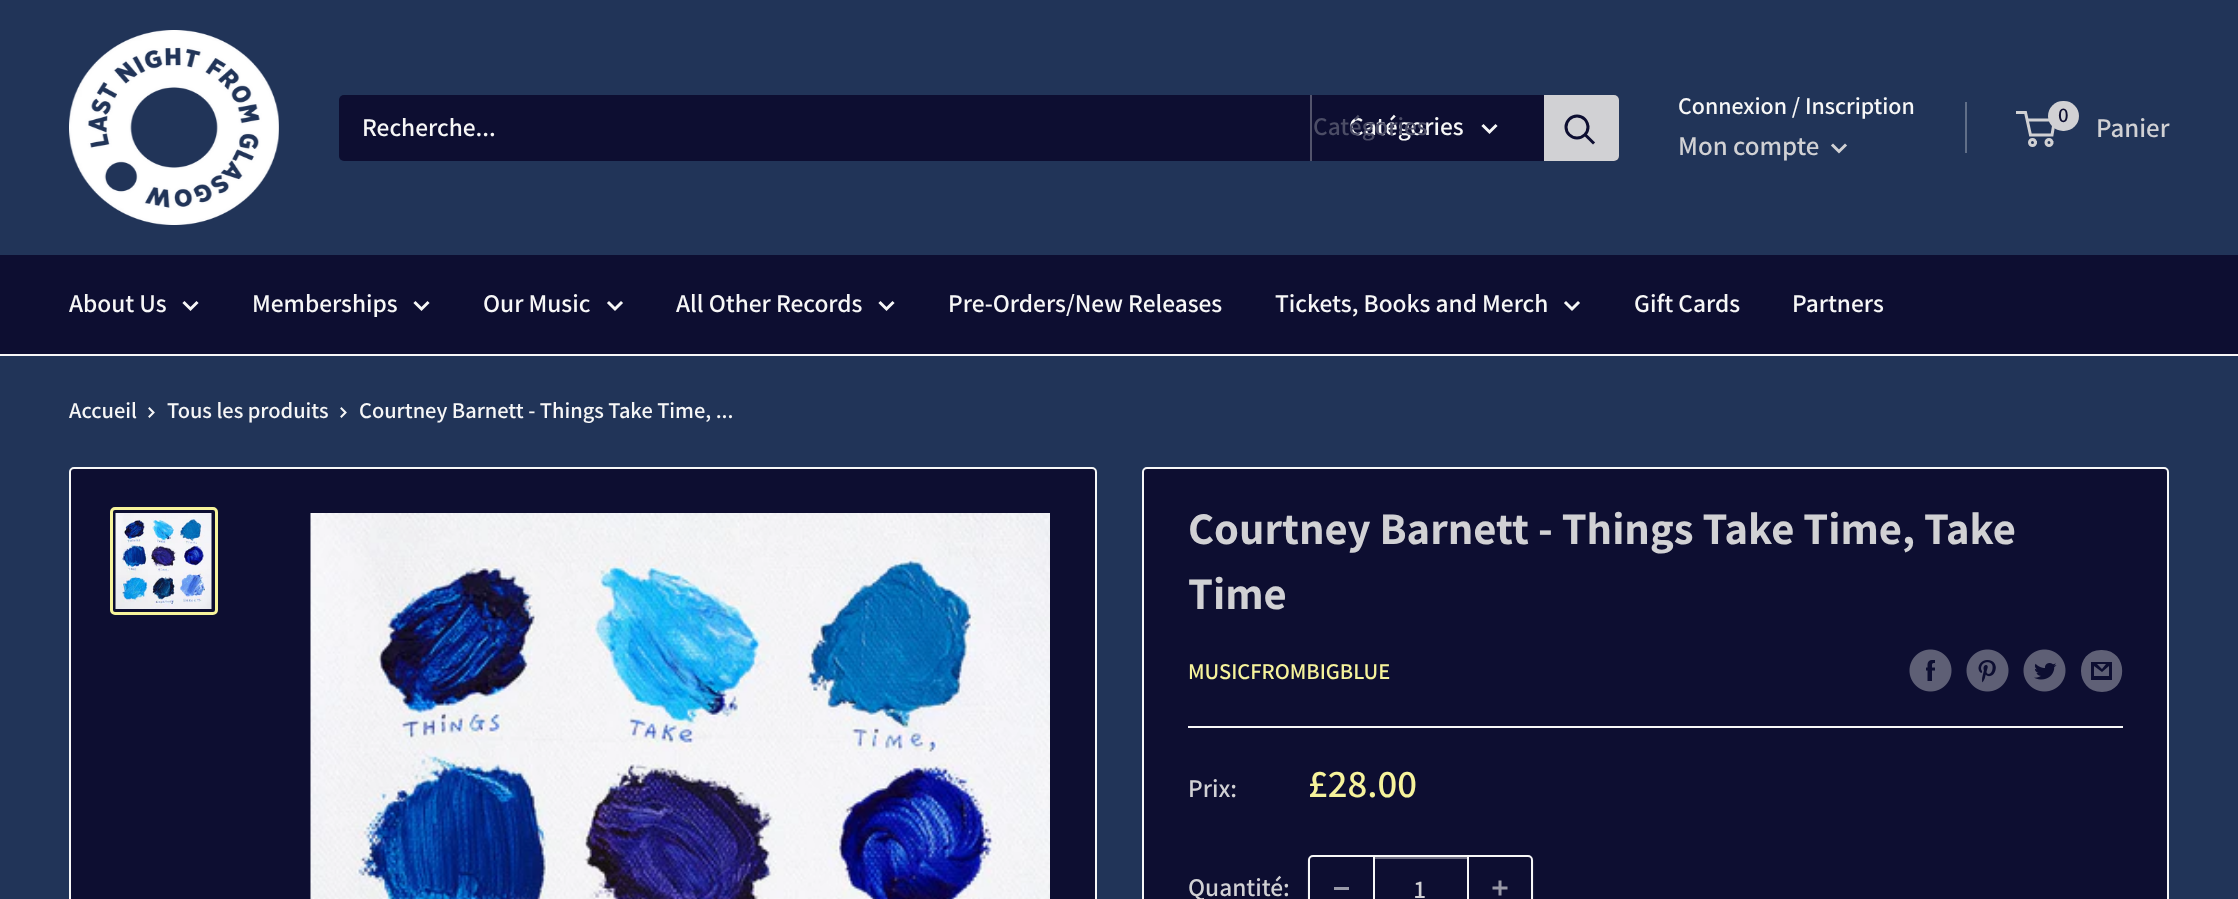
(async () => {
const canvas = document.querySelector("canvas")
canvas.width = 2238
canvas.height = 899
const c = canvas.getContext("2d")
c.miterLimit = 4
c.fontKerning = "normal"
function T(s,x,y){c.fillText(s,x,y)}
function R(x,y,w,h){c.fillRect(x,y,w,h)}
function Q(x,y,w,h,r){c.beginPath();c.roundRect(x,y,w,h,r);c.fill()}
async function I(src,x,y,w,h){const img=new Image();img.src=src;await img.decode();c.drawImage(img,x,y,w,h)}
let path
c.fillStyle="#213458"
R(0,0,2238,899)
await I("1.png",69,30,210,195)
c.fillStyle="#0d0e31"
Q(339,95,1280,66,5)
c.font="600 25.5px Assistant"
c.fillStyle="#f7f7f7"
T("Recherche...",362,136)
c.fillStyle="#53546c"
R(1310,95,2,66)
c.fillStyle="#f7f7f7"
T("Catégories",1349,135)
c.fillStyle="#4c4d66"
T("Catégories",1313,135)
path = new Path2D("M1495.5 126l-6 6l-6-6")
c.strokeStyle="#f7f7f7"
c.lineWidth=3
c.lineCap="square"
c.stroke(path)
c.fillStyle="#d1d1d4"
c.beginPath()
c.roundRect(1544,95,75,66,[0,5,5,0])
c.fill()
path = new Path2D("M1593 142.5l-7.5-7.5")
c.strokeStyle="#0d0e31"
c.stroke(path)
c.beginPath()
c.arc(1577,127,11,0,7)
c.stroke()
c.font="600 24px Assistant"
c.fillStyle="#f7f7f7"
T("Connexion / Inscription",1678,114)
c.fillStyle="#616f88"
R(1965,102,2,51)
c.font="600 27px Assistant"
c.fillStyle="#d1d1d4"
T("Mon compte",1678,155)
path = new Path2D("M1845 145.5l-6 6l-6-6")
c.strokeStyle="#d1d1d4"
c.stroke(path)
c.beginPath()
c.arc(2032.5,142.5,3,0,7)
c.stroke()
c.beginPath()
c.arc(2049,142.5,3,0,7)
c.stroke()
path = new Path2D("M2027 120h27.5l-2.5 15h-21.5l-5-22.5h-9.5")
c.lineCap="butt"
c.stroke(path)
Q(2048,101,31,30,15)
c.font="600 21px Assistant"
c.fillStyle="#0d0e31"
T("0",2058,122)
c.font="600 27px Assistant"
c.fillStyle="#d1d1d4"
T("Panier",2096,137)
c.fillStyle="#0d0e31"
R(0,255,2238,99)
c.fillStyle="#f7f7f7"
R(0,354,2238,2)
c.font="600 25.5px Assistant"
T("About Us",69,312)
path = new Path2D("M196.5 303l-6 6l-6-6")
c.strokeStyle="#f7f7f7"
c.lineCap="square"
c.stroke(path)
T("Memberships",252,312)
path = new Path2D("M427.5 303l-6 6l-6-6")
c.stroke(path)
T("Our Music",483,312)
path = new Path2D("M621 303l-6 6l-6-6")
c.stroke(path)
T("All Other Records",676,312)
path = new Path2D("M892.5 303l-6 6l-6-6")
c.stroke(path)
T("Pre-Orders/New Releases",948,312)
T("Tickets, Books and Merch",1275,312)
path = new Path2D("M1578 303l-6 6l-6-6")
c.stroke(path)
T("Gift Cards",1634,312)
T("Partners",1792,312)
c.font="600 22.5px Assistant"
T("Accueil",69,418)
path = new Path2D("M149.5 408.5l4 4l-4 4")
c.lineWidth=2
c.stroke(path)
T("Tous les produits",167,418)
path = new Path2D("M341.5 408.5l4 4l-4 4")
c.stroke(path)
T("Courtney Barnett - Things Take Time, ...",359,418)
c.fillStyle="#0d0e31"
c.beginPath()
c.roundRect(70,468,1026,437,4)
c.fill()
c.stroke()
c.beginPath()
c.roundRect(111.5,508.5,105,105,3.5)
c.strokeStyle="#f6f39b"
c.lineWidth=3
c.stroke()
await I("2.png",115,513,97,96)
await I("3.png",310,513,740,386)
c.beginPath()
c.roundRect(1143,468,1025,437,4)
c.fill()
c.strokeStyle="#f7f7f7"
c.lineWidth=2
c.stroke()
c.font="bold 45px Assistant"
c.fillStyle="#d1d1d4"
T("Courtney Barnett - Things Take Time, Take",1188,544)
T("Time",1188,609)
c.font="600 22.5px Assistant"
c.fillStyle="#f6f39b"
T("MUSICFROMBIGBLUE",1188,679)
await I("4.png",1909,649,43,43)
await I("5.png",1966,649,43,43)
await I("6.png",2023,649,43,43)
c.fillStyle="#5f6076"
path = new Path2D("M2102 692c-28 0-28-43 0-42c27 0 27 42 0 42zm-5-28h9l-4 5zm12 2v10h-15v-10l8 6zm3-4h-21v18h21z")
c.fill(path)
c.fillStyle="#f7f7f7"
R(1188,726,935,2)
c.font="600 25.5px Assistant"
c.fillStyle="#d1d1d4"
T("Prix:",1188,797)
c.font="600 39px Assistant"
c.fillStyle="#f6f39b"
T("£28.00",1308,797)
c.font="600 25.5px Assistant"
c.fillStyle="#d1d1d4"
T("Quantité:",1188,896)
c.save()
path = new Path2D("M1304 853h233v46h-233zm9 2h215c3 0 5 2 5 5v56c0 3-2 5-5 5h-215c-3 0-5-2-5-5v-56c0-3 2-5 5-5z")
c.clip(path,"evenodd")
c.fillStyle="#f7f7f733"
c.filter="blur(1px)"
c.beginPath()
c.roundRect(1308,857,225,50,5)
c.fill()
c.filter="none"
c.restore()
c.beginPath()
c.roundRect(1309,856,223,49,4)
c.stroke()
c.fillStyle="#999aa8"
R(1334,887,15,3)
c.fillStyle="#6b6b80"
R(1374,857,93,2)
c.fillStyle="#f7f7f7"
R(1467,857,2,42)
R(1373,857,2,42)
c.fillStyle="#d1d1d4"
T("1",1414,898)
await I("7.png",1492,880,16,16)
})()
